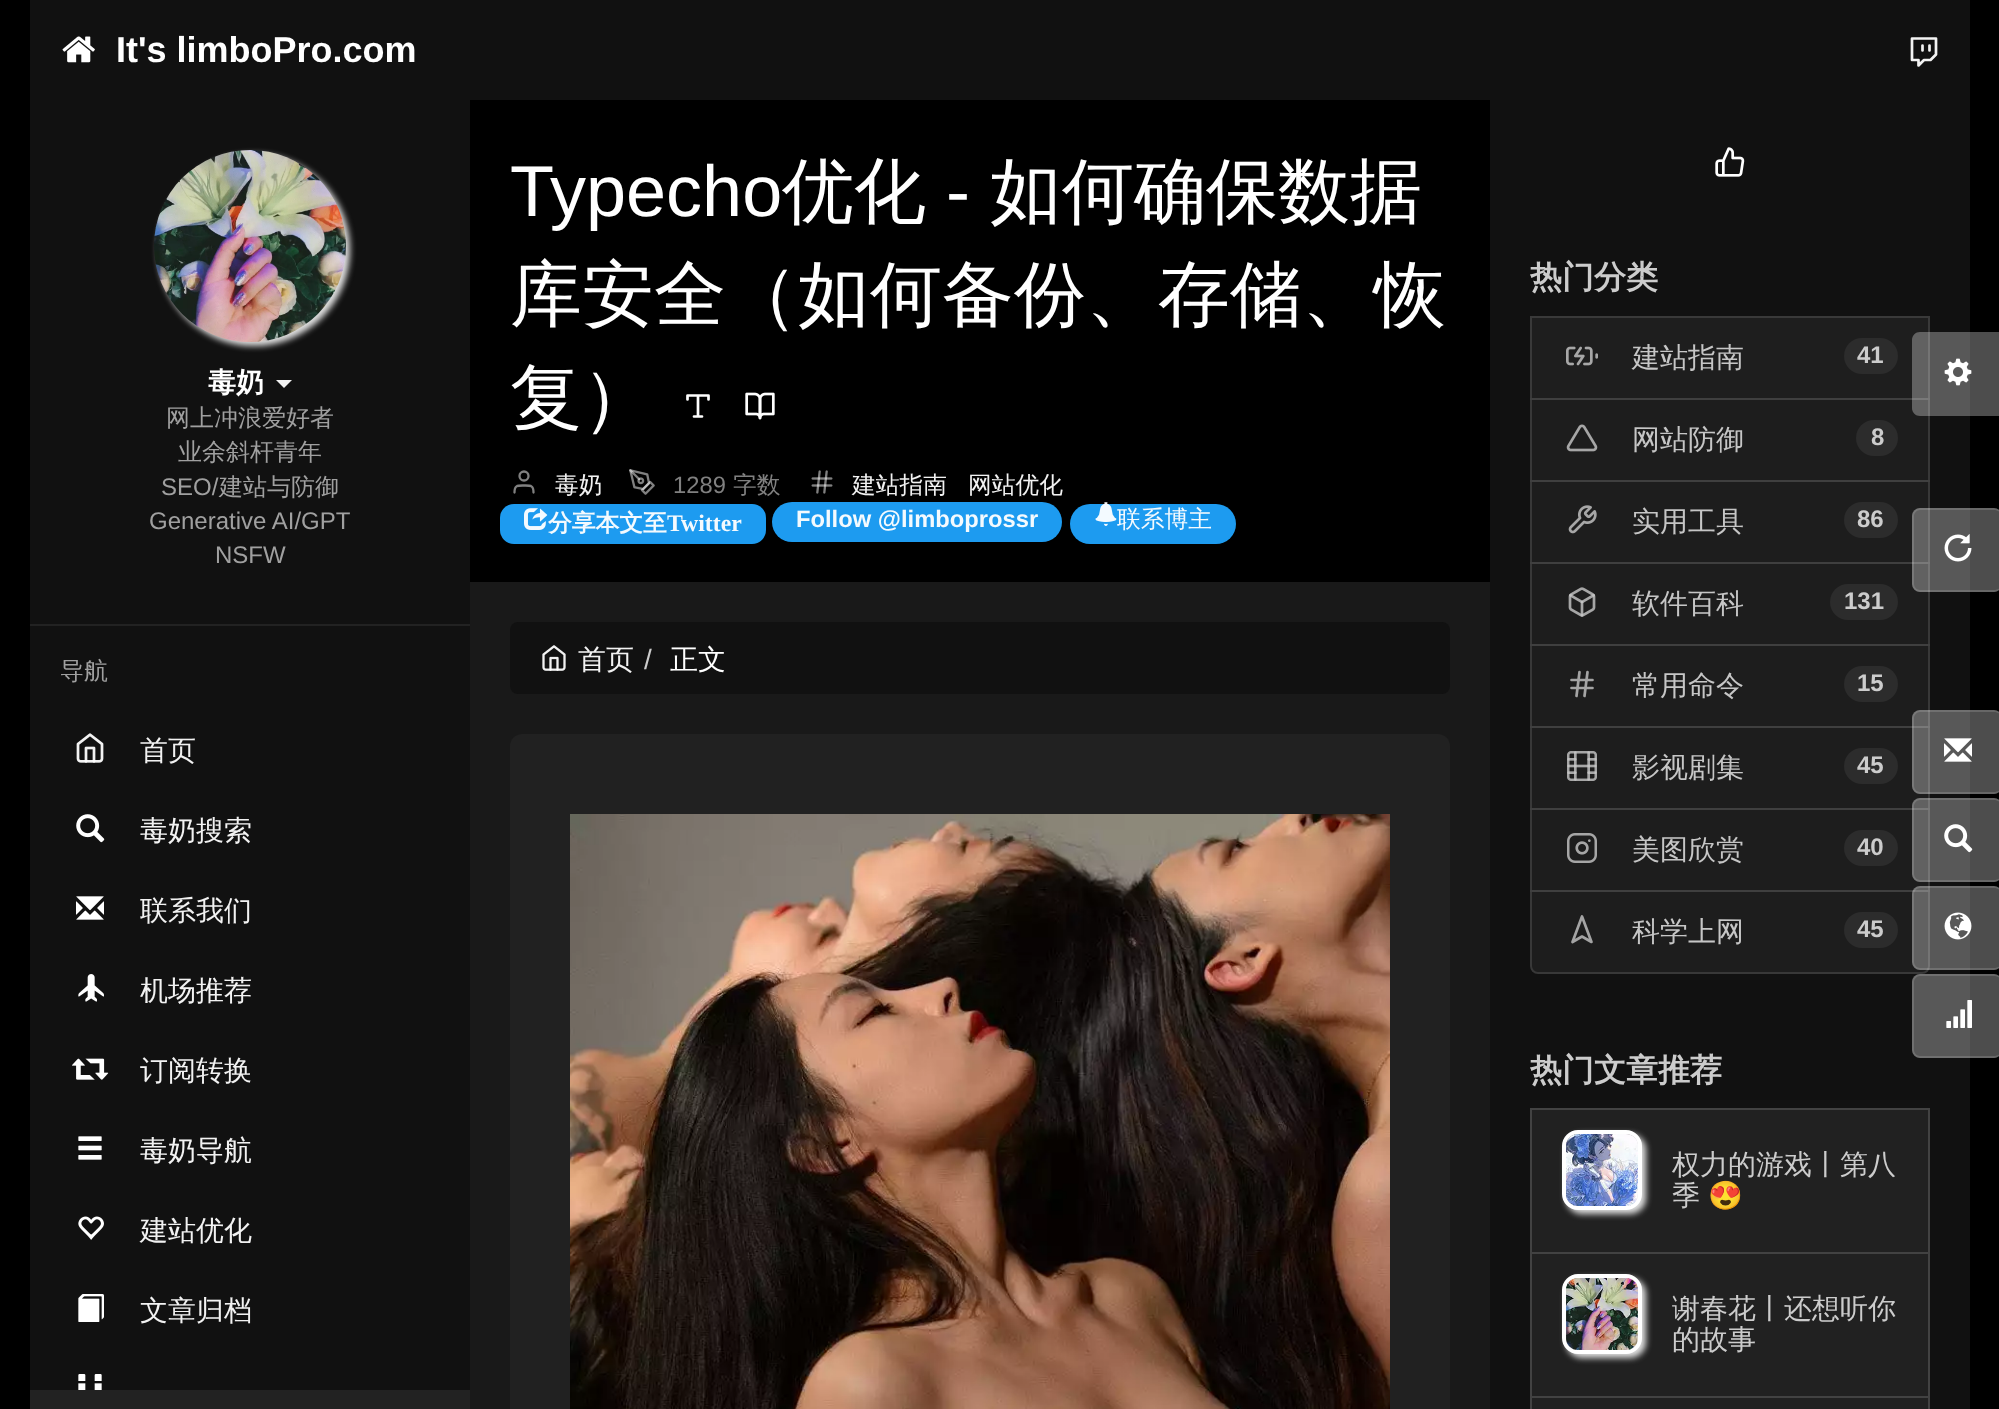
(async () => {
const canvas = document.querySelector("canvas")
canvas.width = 1999
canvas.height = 1409
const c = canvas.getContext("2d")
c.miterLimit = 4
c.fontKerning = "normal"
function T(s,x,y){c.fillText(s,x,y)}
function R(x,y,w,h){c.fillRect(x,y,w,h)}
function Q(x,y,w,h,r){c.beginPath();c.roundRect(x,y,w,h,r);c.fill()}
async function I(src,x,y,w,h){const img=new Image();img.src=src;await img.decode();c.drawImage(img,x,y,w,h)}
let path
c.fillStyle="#000"
R(0,0,1999,1409)
c.fillStyle="#111"
R(30,0,440,1390)
await I("1.png",62,36,33,27)
c.font="bold 36px Liberation Sans"
c.fillStyle="#fff"
T("It's limboPro.com",116,62)
c.fillStyle="#111"
R(470,0,1500,100)
path = new Path2D("M1936 38.5h-24v21.5h6.5v5.5l5.5-5.5h6.5l5.5-5.5zm-13.5 12v-5m7 5v-5")
c.strokeStyle="#f3f3f3"
c.lineWidth=2.7
c.lineCap="round"
c.lineJoin="round"
c.stroke(path)
c.fillStyle="#e1e1e1"
c.filter="blur(3px)"
c.beginPath()
c.roundRect(158,154,192,192,96)
c.fill()
c.filter="none"
await I("2.png",154,150,192,192)
c.font="bold 28px WenQuanYi Zen Hei"
c.fillStyle="#fff"
T("毒奶",208,392)
c.fillStyle="#f3f3f3"
path = new Path2D("M276 380h16l-8 8z")
c.fill(path)
c.font="500 24px WenQuanYi Zen Hei"
c.fillStyle="#a0a0a0"
T("网上冲浪爱好者",166,426)
T("业余斜杆青年",178,460)
c.font="24px Liberation Sans"
T("SEO/",161,495)
c.font="500 24px WenQuanYi Zen Hei"
T("建站与防御",219,495)
c.font="24px Liberation Sans"
T("Generative AI/GPT",149,529)
T("NSFW",215,563)
c.fillStyle="#222"
R(30,624,440,2)
c.font="500 24px WenQuanYi Zen Hei"
c.fillStyle="#a0a0a0"
T("导航",60,679)
await I("3.png",76,733,28,30)
c.font="500 28px WenQuanYi Zen Hei"
c.fillStyle="#f2f2f2"
T("首页",140,760)
await I("4.png",76,814,29,29)
T("毒奶搜索",140,840)
await I("5.png",76,896,28,24)
T("联系我们",140,920)
await I("6.png",78,974,26,28)
T("机场推荐",140,1000)
await I("7.png",72,1058,37,22)
T("订阅转换",140,1080)
await I("8.png",78,1136,24,24)
T("毒奶导航",140,1160)
await I("9.png",78,1216,26,24)
T("建站优化",140,1240)
await I("10.png",78,1294,26,28)
T("文章归档",140,1320)
await I("11.png",78,1374,24,16)
c.fillStyle="#222"
R(30,1390,440,19)
c.font="72px Liberation Sans"
c.fillStyle="#fff"
T("Typecho",510,216)
c.font="500 72px WenQuanYi Zen Hei"
T("优化",782,216)
c.font="72px Liberation Sans"
T("-",946,216)
c.font="500 72px WenQuanYi Zen Hei"
T("如何确保数据",990,216)
T("库安全（如何备份、存储、恢",510,319)
T("复）",510,422)
path = new Path2D("M687.5 399.5v-4h21v4m-14.5 17h8m-4-21v21")
c.strokeStyle="#fff"
c.stroke(path)
await I("12.png",745,392,30,28)
c.beginPath()
c.arc(524,476,4.5,0,7)
c.strokeStyle="#808080"
c.lineWidth=2.3
c.stroke()
c.font="500 23.75px WenQuanYi Zen Hei"
c.fillStyle="#f2f2f2"
T("毒奶",555,493)
path = new Path2D("M533.5 492.5c0-7.5-3-7-9.5-7c-6.5 0-9.5-.5-9.5 7")
c.stroke(path)
await I("13.png",629,469,26,26)
c.font="23.75px Liberation Sans"
c.fillStyle="#808080"
T("1289",673,493)
c.font="500 23.75px WenQuanYi Zen Hei"
T("字数",733,493)
await I("14.png",811,470,22,24)
c.fillStyle="#f2f2f2"
T("建站指南",852,493)
T("网站优化",968,493)
c.fillStyle="#1d9bf0"
Q(500,504,266,40,14)
await I("15.png",524,508,24,22)
c.font="bold 23.75px WenQuanYi Zen Hei"
c.fillStyle="#f4fafe"
T("分享本文至",548,531)
c.font="bold 23.75px Liberation Serif"
T("Twitter",667,531)
c.fillStyle="#1d9bf0"
Q(772,502,290,40,20)
c.font="bold 23.75px Liberation Sans"
c.fillStyle="#f4fafe"
T("Follow @limboprossr",796,527)
c.fillStyle="#1d9bf0"
Q(1070,504,166,40,20)
await I("16.png",1095,502,22,24)
c.font="500 23.75px WenQuanYi Zen Hei"
c.fillStyle="#f4fafe"
T("联系博主",1117,527)
c.fillStyle="#191919"
R(470,582,1020,827)
c.fillStyle="#111"
Q(510,622,940,72,8)
await I("17.png",542,645,24,26)
c.font="500 28px WenQuanYi Zen Hei"
c.fillStyle="#f2f2f2"
T("首页",578,669)
c.font="28px Liberation Sans"
c.fillStyle="#ccc"
T("/",644,669)
c.font="500 28px WenQuanYi Zen Hei"
c.fillStyle="#fff"
T("正文",670,669)
c.fillStyle="#212121"
Q(510,734,940,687,12)
await I("18.png",570,814,820,595)
c.fillStyle="#111"
R(1490,100,480,1309)
await I("19.png",1715,147,30,30)
c.font="bold 32px WenQuanYi Zen Hei"
c.fillStyle="#ccc"
T("热门分类",1530,288)
c.fillStyle="#1e1e1e"
c.beginPath()
c.rect(1531,317,398,82)
c.fill()
c.strokeStyle="#393939"
c.lineWidth=2
c.lineJoin="miter"
c.stroke()
await I("20.png",1566,346,32,20)
c.font="500 28px WenQuanYi Zen Hei"
c.fillStyle="#c6c6c6"
T("建站指南",1632,367)
c.fillStyle="#2c2c2c"
Q(1844,338,54,36,18)
c.font="bold 24px Liberation Sans"
c.fillStyle="#ccc"
T("41",1857,363)
c.fillStyle="#212121cc"
R(1530,398,400,84)
c.strokeStyle="#ffffff1f"
c.strokeRect(1531,399,398,82)
await I("21.png",1566,424,32,28)
c.font="500 28px WenQuanYi Zen Hei"
c.fillStyle="#c6c6c6"
T("网站防御",1632,449)
c.fillStyle="#2c2c2c"
Q(1856,420,42,36,18)
c.font="bold 24px Liberation Sans"
c.fillStyle="#ccc"
T("8",1871,445)
c.fillStyle="#212121cc"
R(1530,480,400,84)
c.strokeRect(1531,481,398,82)
await I("22.png",1568,505,29,29)
c.font="500 28px WenQuanYi Zen Hei"
c.fillStyle="#c6c6c6"
T("实用工具",1632,531)
c.fillStyle="#2c2c2c"
Q(1844,502,54,36,18)
c.font="bold 24px Liberation Sans"
c.fillStyle="#ccc"
T("86",1857,527)
c.fillStyle="#212121cc"
R(1530,562,400,84)
c.strokeRect(1531,563,398,82)
await I("23.png",1568,587,28,30)
c.font="500 28px WenQuanYi Zen Hei"
c.fillStyle="#c6c6c6"
T("软件百科",1632,613)
c.fillStyle="#2c2c2c"
Q(1830,584,68,36,18)
c.font="bold 24px Liberation Sans"
c.fillStyle="#ccc"
T("131",1844,609)
c.fillStyle="#212121cc"
R(1530,644,400,84)
c.strokeRect(1531,645,398,82)
path = new Path2D("M1571.5 680h21m-21 8h21m-13-16l-3 24m11-24l-3 24")
c.strokeStyle="#a4a4a4"
c.lineWidth=2.7
c.lineJoin="round"
c.stroke(path)
c.font="500 28px WenQuanYi Zen Hei"
c.fillStyle="#c6c6c6"
T("常用命令",1632,695)
c.fillStyle="#2c2c2c"
Q(1844,666,54,36,18)
c.font="bold 24px Liberation Sans"
c.fillStyle="#ccc"
T("15",1857,691)
c.fillStyle="#212121cc"
R(1530,726,400,84)
c.strokeStyle="#ffffff1f"
c.lineWidth=2
c.lineJoin="miter"
c.strokeRect(1531,727,398,82)
await I("24.png",1567,751,30,30)
c.font="500 28px WenQuanYi Zen Hei"
c.fillStyle="#c6c6c6"
T("影视剧集",1632,777)
c.fillStyle="#2c2c2c"
Q(1844,748,54,36,18)
c.font="bold 24px Liberation Sans"
c.fillStyle="#ccc"
T("45",1857,773)
c.fillStyle="#212121cc"
R(1530,808,400,84)
c.strokeRect(1531,809,398,82)
await I("25.png",1567,833,30,30)
c.font="500 28px WenQuanYi Zen Hei"
c.fillStyle="#c6c6c6"
T("美图欣赏",1632,859)
c.fillStyle="#2c2c2c"
Q(1844,830,54,36,18)
c.font="bold 24px Liberation Sans"
c.fillStyle="#ccc"
T("40",1857,855)
c.fillStyle="#212121cc"
c.beginPath()
c.roundRect(1530,890,400,84,[0,0,8,8])
c.fill()
c.beginPath()
c.roundRect(1531,891,398,82,[0,0,7,7])
c.stroke()
path = new Path2D("M1582 916.5l9.5 25.5l-9.5-5.5l-9.5 5.5z")
c.strokeStyle="#a4a4a4"
c.lineWidth=2.7
c.lineJoin="round"
c.stroke(path)
c.font="500 28px WenQuanYi Zen Hei"
c.fillStyle="#c6c6c6"
T("科学上网",1632,941)
c.fillStyle="#2c2c2c"
Q(1844,912,54,36,18)
c.font="bold 24px Liberation Sans"
c.fillStyle="#ccc"
T("45",1857,937)
c.font="bold 32px WenQuanYi Zen Hei"
T("热门文章推荐",1530,1081)
c.fillStyle="#212121"
c.beginPath()
c.rect(1531,1109,398,144)
c.fill()
c.strokeStyle="#424242"
c.lineWidth=2
c.lineJoin="miter"
c.stroke()
c.fillStyle="#e1e1e1"
c.filter="blur(3px)"
c.beginPath()
c.roundRect(1566,1134,80,80,16)
c.fill()
c.filter="none"
c.beginPath()
c.roundRect(1564,1132,76,76,14)
c.strokeStyle="#fff"
c.lineWidth=4
c.stroke()
await I("26.png",1566,1134,72,72)
c.font="500 28px WenQuanYi Zen Hei"
c.fillStyle="#ccc"
T("权力的游戏丨第八",1672,1174)
T("季",1672,1205)
c.font="28px Noto Color Emoji"
T("😍",1708,1205)
c.fillStyle="#212121"
c.beginPath()
c.rect(1531,1253,398,144)
c.fill()
c.strokeStyle="#424242"
c.lineWidth=2
c.stroke()
c.fillStyle="#e1e1e1"
c.filter="blur(3px)"
c.beginPath()
c.roundRect(1566,1278,80,80,16)
c.fill()
c.filter="none"
c.beginPath()
c.roundRect(1564,1276,76,76,14)
c.strokeStyle="#fff"
c.lineWidth=4
c.stroke()
await I("27.png",1566,1278,72,72)
c.font="500 28px WenQuanYi Zen Hei"
c.fillStyle="#ccc"
T("谢春花丨还想听你",1672,1318)
T("的故事",1672,1349)
c.fillStyle="#212121"
c.beginPath()
c.rect(1531,1397,398,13)
c.fill()
c.strokeStyle="#424242"
c.lineWidth=2
c.stroke()
c.fillStyle="#ffffff4d"
Q(1912,508,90,84,8)
c.fillStyle="#ffffff26"
path = new Path2D("M1920 508h74c4 0 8 4 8 8v68c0 4-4 8-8 8h-74c-4 0-8-4-8-8v-68c0-4 4-8 8-8zm0 2h74c4 0 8 3 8 6v68c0 3-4 6-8 6h-74c-3 0-6-3-6-6v-68c0-3 3-6 6-6z")
c.fill(path,"evenodd")
await I("28.png",1944,534,28,28)
c.fillStyle="#ffffff4d"
Q(1912,710,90,84,8)
c.fillStyle="#ffffff26"
path = new Path2D("M1920 710h74c4 0 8 4 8 8v68c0 4-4 8-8 8h-74c-4 0-8-4-8-8v-68c0-4 4-8 8-8zm0 2h74c4 0 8 3 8 6v68c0 3-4 6-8 6h-74c-3 0-6-3-6-6v-68c0-3 3-6 6-6z")
c.fill(path,"evenodd")
await I("29.png",1944,738,28,24)
c.fillStyle="#ffffff4d"
Q(1912,798,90,84,8)
c.fillStyle="#ffffff26"
path = new Path2D("M1920 798h74c4 0 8 4 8 8v68c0 4-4 8-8 8h-74c-4 0-8-4-8-8v-68c0-4 4-8 8-8zm0 2h74c4 0 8 3 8 6v68c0 3-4 6-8 6h-74c-3 0-6-3-6-6v-68c0-3 3-6 6-6z")
c.fill(path,"evenodd")
await I("30.png",1944,824,29,29)
c.fillStyle="#ffffff4d"
Q(1912,886,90,84,8)
c.fillStyle="#ffffff26"
path = new Path2D("M1920 886h74c4 0 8 4 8 8v68c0 4-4 8-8 8h-74c-4 0-8-4-8-8v-68c0-4 4-8 8-8zm0 2h74c4 0 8 3 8 6v68c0 3-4 6-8 6h-74c-3 0-6-3-6-6v-68c0-3 3-6 6-6z")
c.fill(path,"evenodd")
await I("31.png",1944,912,28,28)
c.fillStyle="#ffffff4d"
Q(1912,974,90,84,8)
c.fillStyle="#ffffff26"
path = new Path2D("M1920 974h74c4 0 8 4 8 8v68c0 4-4 8-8 8h-74c-4 0-8-4-8-8v-68c0-4 4-8 8-8zm0 2h74c4 0 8 3 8 6v68c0 3-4 6-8 6h-74c-3 0-6-3-6-6v-68c0-3 3-6 6-6z")
c.fill(path,"evenodd")
await I("32.png",1946,1000,26,28)
c.fillStyle="#ffffff4d"
path = new Path2D("M1920 332h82v84h-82c-4.5 0-8-3.5-8-8v-68c0-4.5 3.5-8 8-8z")
c.fill(path)
await I("33.png",1944,358,28,28)
})()
